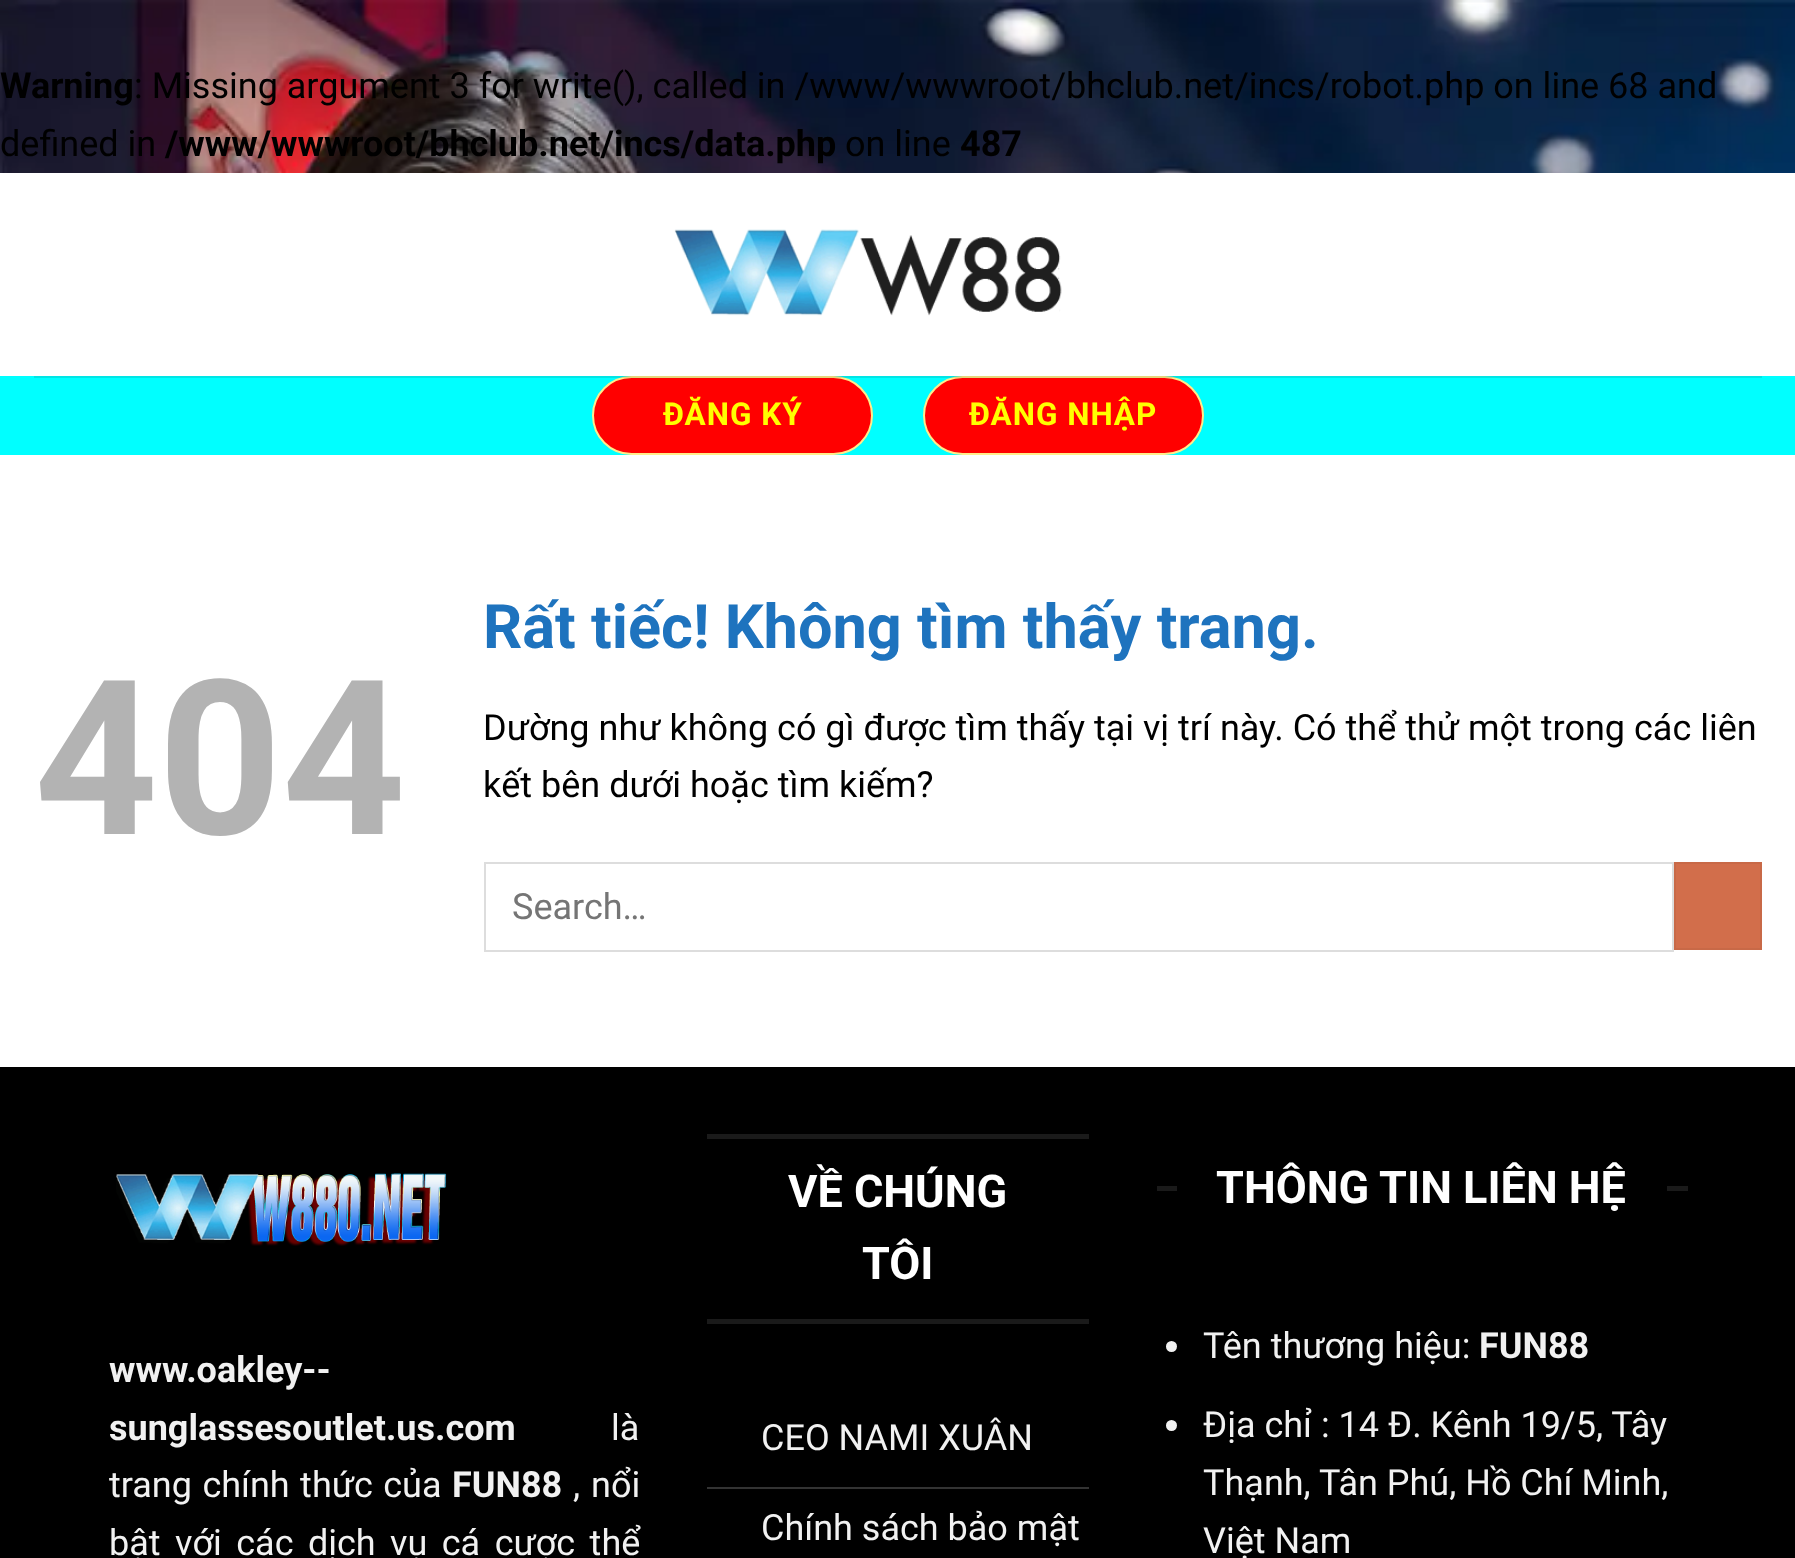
(async () => {
const canvas = document.querySelector("canvas")
canvas.width = 1795
canvas.height = 1558
const c = canvas.getContext("2d")
c.miterLimit = 4
c.fontKerning = "normal"
function T(s,x,y){c.fillText(s,x,y)}
function R(x,y,w,h){c.fillRect(x,y,w,h)}
async function I(src,x,y,w,h){const img=new Image();img.src=src;await img.decode();c.drawImage(img,x,y,w,h)}
c.fillStyle="#fff"
R(0,0,1795,1558)
await I("1.png",0,0,1795,173)
c.font="bold 36px Roboto"
c.fillStyle="#000"
T("Warning",0,98)
c.font="36px Roboto"
T(": Missing argument 3 for write(), called in /www/wwwroot/bhclub.net/incs/robot.php on line 68 and",134,98)
T("defined in",0,156)
c.font="bold 36px Roboto"
T("/www/wwwroot/bhclub.net/incs/data.php",165,156)
c.font="36px Roboto"
T("on line",845,156)
c.font="bold 36px Roboto"
T("487",960,156)
await I("2.png",674,229,388,87)
c.fillStyle="#0ff"
R(0,376,1795,79)
c.fillStyle="#f00"
c.beginPath()
c.roundRect(593,377,279,77,38.5)
c.fill()
c.strokeStyle="#ffec8b"
c.lineWidth=2
c.stroke()
c.beginPath()
c.roundRect(924,377,279,77,38.5)
c.fill()
c.stroke()
c.fillStyle="#0000001a"
R(34,376,1728,2)
c.letterSpacing="1px"
c.font="bold 31.5px Roboto"
c.fillStyle="#ff0"
T("ĐĂNG KÝ",663,425)
T("ĐĂNG NHẬP",969,425)
c.letterSpacing="0px"
c.font="bold 216px Roboto"
c.fillStyle="#b3b3b3"
T("404",34,834)
c.font="bold 61.25px Roboto"
c.fillStyle="#1e73be"
T("Rất tiếc! Không tìm thấy trang.",483,648)
c.font="36px Roboto"
c.fillStyle="#000"
T("Dường như không có gì được tìm thấy tại vị trí này. Có thể thử một trong các liên",483,740)
T("kết bên dưới hoặc tìm kiếm?",483,797)
c.strokeStyle="#ddd"
c.strokeRect(485,863,1188,88)
c.fillStyle="#757575"
T("Search…",512,919)
c.fillStyle="#d26e4b"
c.beginPath()
c.rect(1675,863,86,86)
c.fill()
c.strokeStyle="#c86947"
c.stroke()
c.fillStyle="#000"
R(0,1067,1795,491)
await I("3.png",116,1173,331,73)
c.font="bold 36px Roboto"
c.fillStyle="#f1f1f1"
T("www.oakley--",109,1382)
T("sunglassesoutlet.us.com",109,1440)
c.font="36px Roboto"
T("là",611,1440)
c.wordSpacing="1.5px"
T("trang chính thức của",109,1497)
c.wordSpacing="0px"
c.font="bold 36px Roboto"
T("FUN88",452,1497)
c.wordSpacing="2px"
c.font="36px Roboto"
T(", nổi",573,1497)
c.wordSpacing="5.5px"
T("bật với các dịch vụ cá cược thể",109,1555)
c.fillStyle="#1a1a1a"
R(707,1134,382,5)
c.wordSpacing="0px"
c.font="bold 45px Roboto"
c.fillStyle="#fff"
T("VỀ CHÚNG",788,1207)
T("TÔI",862,1279)
c.fillStyle="#1a1a1a"
R(707,1319,382,5)
c.fillStyle="#333"
R(707,1487,382,2)
c.font="36px Roboto"
c.fillStyle="#f1f1f1"
T("CEO NAMI XUÂN",761,1450)
T("Chính sách bảo mật",761,1540)
c.fillStyle="#1a1a1a"
R(1157,1186,20,5)
c.font="bold 45px Roboto"
c.fillStyle="#fff"
T("THÔNG TIN LIÊN HỆ",1216,1203)
c.fillStyle="#1a1a1a"
R(1667,1186,21,5)
c.fillStyle="#f1f1f1"
c.beginPath()
c.arc(1171.5,1346.5,5.5,0,7)
c.fill()
c.font="36px Roboto"
T("Tên thương hiệu:",1203,1358)
c.font="bold 36px Roboto"
T("FUN88",1479,1358)
c.beginPath()
c.arc(1171.5,1425.5,5.5,0,7)
c.fill()
c.font="36px Roboto"
T("Địa chỉ : 14 Đ. Kênh 19/5, Tây",1203,1437)
T("Thạnh, Tân Phú, Hồ Chí Minh,",1203,1495)
T("Việt Nam",1203,1553)
})()
